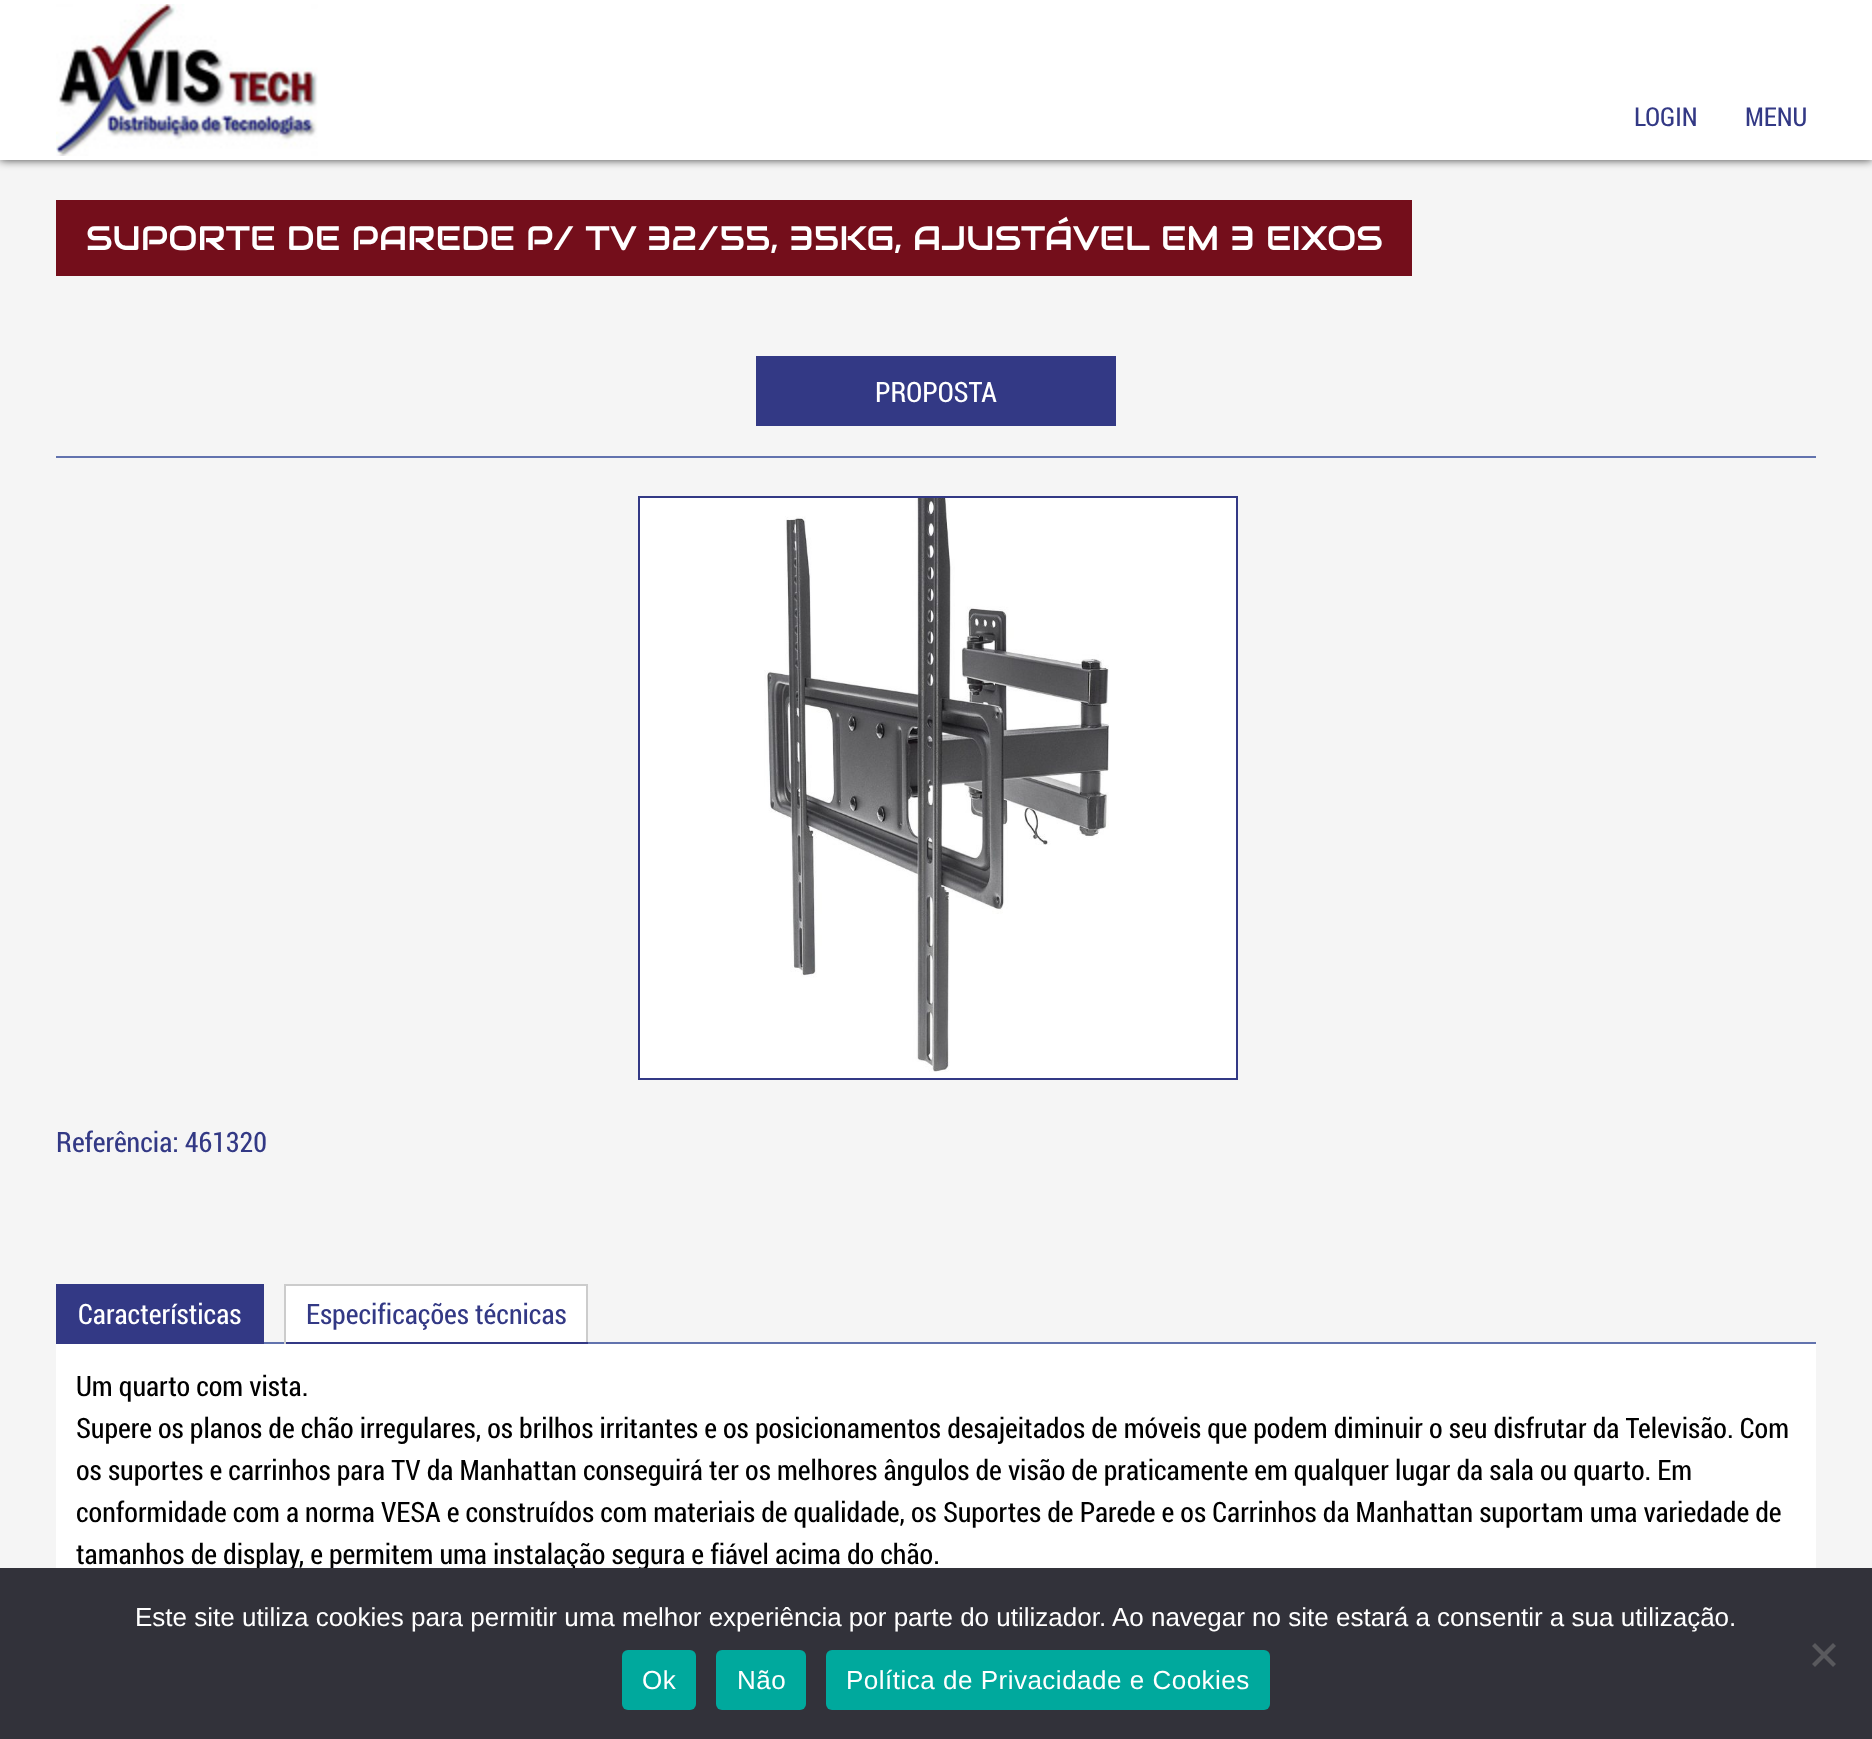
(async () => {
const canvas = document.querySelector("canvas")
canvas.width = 1872
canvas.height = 1739
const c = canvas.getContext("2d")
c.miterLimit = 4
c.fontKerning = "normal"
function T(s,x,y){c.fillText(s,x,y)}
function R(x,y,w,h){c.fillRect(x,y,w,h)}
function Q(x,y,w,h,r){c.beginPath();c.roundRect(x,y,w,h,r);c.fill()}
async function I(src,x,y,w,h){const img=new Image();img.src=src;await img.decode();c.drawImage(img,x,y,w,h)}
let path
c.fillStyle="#f5f5f5"
R(0,0,1872,1739)
c.fillStyle="#000000bf"
c.filter="blur(5px)"
c.beginPath()
c.rect(0,0,1872,160)
c.fill()
c.filter="none"
c.fillStyle="#fff"
R(0,0,1872,160)
await I("1.png",56,4,262,152)
c.font="26px Roboto Condensed"
c.fillStyle="#333985"
T("LOGIN",1634,126)
T("MENU",1745,126)
c.fillStyle="#6273ae"
R(56,456,1760,2)
c.fillStyle="#740e1b"
R(56,200,1356,76)
c.font="34px Audiowide"
c.fillStyle="#fff"
T("SUPORTE DE PAREDE P/ TV 32/55, 35KG, AJUSTÁVEL EM 3 EIXOS",86,250)
c.fillStyle="#333985"
R(756,356,360,70)
c.font="28px Roboto Condensed"
c.fillStyle="#fff"
T("PROPOSTA",875,402)
c.beginPath()
c.rect(639,497,598,582)
c.fill()
c.strokeStyle="#333985"
c.lineWidth=2
c.stroke()
await I("2.png",764,498,345,574)
c.fillStyle="#333985"
T("Referência: 461320",56,1152)
c.fillStyle="#6273ae"
R(264,1342,1552,2)
c.fillStyle="#333985"
R(56,1284,208,60)
c.fillStyle="#fff"
T("Características",78,1324)
R(286,1286,300,56)
c.fillStyle="#ccc"
R(284,1284,304,2)
R(586,1284,2,60)
c.fillStyle="#333985"
R(284,1342,304,2)
c.fillStyle="#ccc"
R(284,1284,2,60)
c.fillStyle="#333985"
T("Especificações técnicas",306,1324)
c.fillStyle="#fff"
R(56,1344,1760,224)
c.fillStyle="#000"
T("Um quarto com vista.",76,1396)
T("Supere os planos de chão irregulares, os brilhos irritantes e os posicionamentos desajeitados de móveis que podem diminuir o seu disfrutar da Televisão. Com",76,1438)
T("os suportes e carrinhos para TV da Manhattan conseguirá ter os melhores ângulos de visão de praticamente em qualquer lugar da sala ou quarto. Em",76,1480)
T("conformidade com a norma VESA e construídos com materiais de qualidade, os Suportes de Parede e os Carrinhos da Manhattan suportam uma variedade de",76,1522)
T("tamanhos de display, e permitem uma instalação segura e fiável acima do chão.",76,1564)
c.fillStyle="#32323a"
R(0,1568,1872,171)
c.font="26px Liberation Sans"
c.fillStyle="#fff"
T("Este site utiliza cookies para permitir uma melhor experiência por parte do utilizador. Ao navegar no site estará a consentir a sua utilização.",135,1626)
c.fillStyle="#59595d"
path = new Path2D("M1833 1643l3 3l-21 21l-3-3z")
c.fill(path)
path = new Path2D("M1812 1646l3-3l21 21l-3 3z")
c.fill(path)
c.fillStyle="#00a99d"
Q(622,1650,74,60,6)
c.letterSpacing="0.5px"
c.fillStyle="#fff"
T("Ok",642,1689)
c.fillStyle="#00a99d"
Q(716,1650,90,60,6)
c.fillStyle="#fff"
T("Não",737,1689)
c.fillStyle="#00a99d"
Q(826,1650,444,60,6)
c.fillStyle="#fff"
T("Política de Privacidade e Cookies",846,1689)
})()
